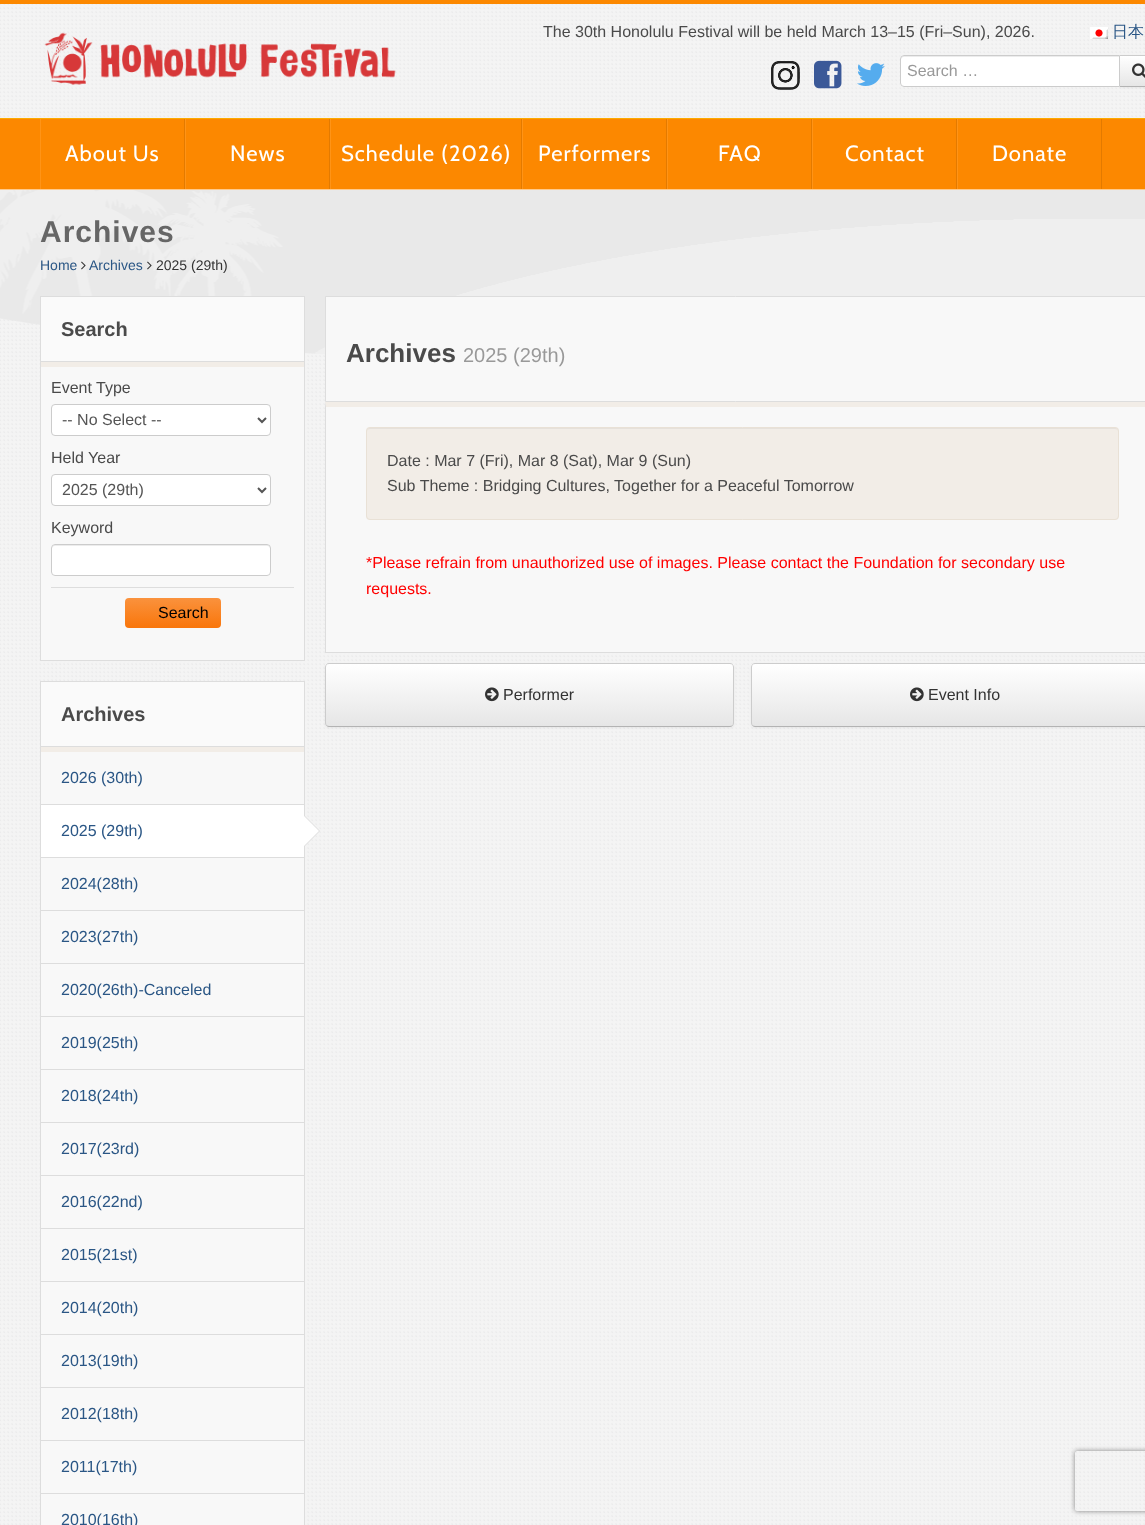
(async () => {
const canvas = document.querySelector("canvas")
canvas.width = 1145
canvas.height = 1525
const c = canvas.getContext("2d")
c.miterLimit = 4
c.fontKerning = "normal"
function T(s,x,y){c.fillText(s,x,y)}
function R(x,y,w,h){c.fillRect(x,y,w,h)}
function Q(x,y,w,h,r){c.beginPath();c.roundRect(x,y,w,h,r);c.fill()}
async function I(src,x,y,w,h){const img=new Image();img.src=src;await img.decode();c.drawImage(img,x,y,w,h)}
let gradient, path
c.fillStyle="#f8f8f8"
R(0,0,1145,1525)
await I("1.png",0,4,1145,1521)
c.fillStyle="#fc8800"
R(0,0,1145,4)
await I("2.png",44,32,352,53)
c.font="16px Liberation Sans"
c.fillStyle="#4a4a4a"
T("The 30th Honolulu Festival will be held March 13–15 (Fri–Sun), 2026.",543,37)
await I("3.png",1090,27,18,12)
c.font="500 16px WenQuanYi Zen Hei"
c.fillStyle="#2a5685"
T("日本",1112,37)
await I("4.png",771,61,29,29)
await I("5.png",814,60,28,29)
await I("6.png",857,63,28,23)
c.fillStyle="#0000000d"
c.filter="blur(1px)"
c.beginPath()
c.roundRect(1119,56,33,32,4)
c.fill()
c.filter="none"
c.fillStyle="#ccc"
path = new Path2D("M1119 55l1 1h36c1 0 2 0 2 1l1-1c-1-.5-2-1-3-1z")
c.fill(path)
c.fillStyle="#b3b3b3"
path = new Path2D("M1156 87c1 0 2-.5 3-1l-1-1c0 1-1 1-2 1h-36l-1 1z")
c.fill(path)
c.fillStyle="#fff"
c.beginPath()
c.roundRect(900,55,220,32,[4,0,0,4])
c.fill()
c.fillStyle="#ececec"
path = new Path2D("M904 57h215v-1h-215c-2 0-3 1-3 3v1c0-2 1-3 3-3z")
c.fill(path)
c.beginPath()
c.roundRect(900.5,55.5,219,31,[3.5,0,0,3.5])
c.strokeStyle="#ccc"
c.stroke()
c.font="16px Liberation Sans"
c.fillStyle="#999"
T("Search …",907,76)
gradient = c.createLinearGradient(1140,56,1140,86)
gradient.addColorStop(0,"#fff")
gradient.addColorStop(1,"#e6e6e6")
c.fillStyle = gradient
R(1120,56,25,30)
await I("7.png",1132,63,13,15)
c.fillStyle="#fc8800"
R(0,119,1145,70)
c.fillStyle="#fcaa00"
R(0,118,1145,1)
c.fillStyle="#e37a00"
R(184,119,1,70)
c.fillStyle="#ff9417"
R(40,119,1,70)
c.letterSpacing="1px"
c.font="22px Cabin"
c.fillStyle="#fff"
T("About Us",65,161)
c.fillStyle="#e37a00"
R(329,119,1,70)
c.fillStyle="#ff9417"
R(185,119,1,70)
c.fillStyle="#fff"
T("News",230,161)
c.fillStyle="#e37a00"
R(521,119,1,70)
c.fillStyle="#ff9417"
R(330,119,1,70)
c.fillStyle="#fff"
T("Schedule (2026)",341,161)
c.fillStyle="#e37a00"
R(666,119,1,70)
c.fillStyle="#ff9417"
R(522,119,1,70)
c.fillStyle="#fff"
T("Performers",538,161)
c.fillStyle="#e37a00"
R(811,119,1,70)
c.fillStyle="#ff9417"
R(667,119,1,70)
c.fillStyle="#fff"
T("FAQ",718,161)
c.fillStyle="#e37a00"
R(956,119,1,70)
c.fillStyle="#ff9417"
R(812,119,1,70)
c.fillStyle="#fff"
T("Contact",845,161)
c.fillStyle="#e37a00"
R(1101,119,1,70)
c.fillStyle="#ff9417"
R(957,119,1,70)
c.fillStyle="#fff"
T("Donate",992,161)
await I("8.png",0,190,1145,165)
c.fillStyle="#ffca8c"
R(0,189,1145,1)
c.font="bold 30px Liberation Sans"
c.fillStyle="#666"
T("Archives",40,242)
c.letterSpacing="0px"
c.font="14px Liberation Sans"
c.fillStyle="#2a5685"
T("Home",40,270)
await I("9.png",81,261,5,9)
T("Archives",89,270)
await I("10.png",147,261,5,9)
c.fillStyle="#333"
T("2025 (29th)",156,270)
c.fillStyle="#f8f8f8"
R(41,367,263,293)
c.strokeStyle="#ddd"
c.strokeRect(40.5,296.5,264,364)
c.fillStyle="#fafafa"
R(41,297,263,64)
c.fillStyle="#ddd"
R(41,361,263,1)
c.font="bold 20px Liberation Sans"
c.fillStyle="#4a4a4a"
T("Search",61,336)
c.fillStyle="#f2ede7"
R(41,362,263,5)
c.font="16px Liberation Sans"
c.fillStyle="#4a4a4a"
T("Event Type",51,393)
c.fillStyle="#fff"
c.beginPath()
c.roundRect(51.5,404.5,219,31,3.5)
c.fill()
c.strokeStyle="#ccc"
c.stroke()
path = new Path2D("M258 418l4 4l4-4")
c.strokeStyle="#555"
c.lineWidth=2
c.stroke(path)
c.fillStyle="#555"
T("-- No Select --",62,425)
c.fillStyle="#4a4a4a"
T("Held Year",51,463)
c.fillStyle="#fff"
c.beginPath()
c.roundRect(51.5,474.5,219,31,3.5)
c.fill()
c.strokeStyle="#ccc"
c.lineWidth=1
c.stroke()
path = new Path2D("M258 488l4 4l4-4")
c.strokeStyle="#555"
c.lineWidth=2
c.stroke(path)
c.fillStyle="#555"
T("2025 (29th)",62,495)
c.fillStyle="#4a4a4a"
T("Keyword",51,533)
c.fillStyle="#fff"
Q(51,544,220,32,4)
c.fillStyle="#ececec"
path = new Path2D("M55 546h212c2 0 3 1 3 3v-1c0-2-1-3-3-3h-212c-2 0-3 1-3 3v1c0-2 1-3 3-3z")
c.fill(path)
c.beginPath()
c.roundRect(51.5,544.5,219,31,3.5)
c.strokeStyle="#ccc"
c.lineWidth=1
c.stroke()
c.fillStyle="#ddd"
R(51,587,243,1)
gradient = c.createLinearGradient(173,598,173,628)
gradient.addColorStop(0,"#fa923d")
gradient.addColorStop(1,"#f9760b")
c.fillStyle = gradient
Q(125,598,96,30,4)
c.fillStyle="#000"
T("Search",158,618)
c.fillStyle="#f8f8f8"
R(41,752,263,773)
c.strokeStyle="#ddd"
c.strokeRect(40.5,681.5,264,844)
c.fillStyle="#fafafa"
R(41,682,263,64)
c.fillStyle="#ddd"
R(41,746,263,1)
c.font="bold 20px Liberation Sans"
c.fillStyle="#4a4a4a"
T("Archives",61,721)
c.fillStyle="#f2ede7"
R(41,747,263,5)
c.fillStyle="#ddd"
R(41,804,263,1)
c.font="16px Liberation Sans"
c.fillStyle="#2a5685"
T("2026 (30th)",61,783)
c.fillStyle="#fff"
R(41,805,263,52)
c.fillStyle="#ddd"
R(41,857,263,1)
path = new Path2D("M304 847v-32l16 16z")
c.fill(path)
c.fillStyle="#2a5685"
T("2025 (29th)",61,836)
c.fillStyle="#fff"
path = new Path2D("M304 846v-30l15 15z")
c.fill(path)
c.fillStyle="#ddd"
R(41,910,263,1)
c.fillStyle="#2a5685"
T("2024(28th)",61,889)
c.fillStyle="#ddd"
R(41,963,263,1)
c.fillStyle="#2a5685"
T("2023(27th)",61,942)
c.fillStyle="#ddd"
R(41,1016,263,1)
c.fillStyle="#2a5685"
T("2020(26th)-Canceled",61,995)
c.fillStyle="#ddd"
R(41,1069,263,1)
c.fillStyle="#2a5685"
T("2019(25th)",61,1048)
c.fillStyle="#ddd"
R(41,1122,263,1)
c.fillStyle="#2a5685"
T("2018(24th)",61,1101)
c.fillStyle="#ddd"
R(41,1175,263,1)
c.fillStyle="#2a5685"
T("2017(23rd)",61,1154)
c.fillStyle="#ddd"
R(41,1228,263,1)
c.fillStyle="#2a5685"
T("2016(22nd)",61,1207)
c.fillStyle="#ddd"
R(41,1281,263,1)
c.fillStyle="#2a5685"
T("2015(21st)",61,1260)
c.fillStyle="#ddd"
R(41,1334,263,1)
c.fillStyle="#2a5685"
T("2014(20th)",61,1313)
c.fillStyle="#ddd"
R(41,1387,263,1)
c.fillStyle="#2a5685"
T("2013(19th)",61,1366)
c.fillStyle="#ddd"
R(41,1440,263,1)
c.fillStyle="#2a5685"
T("2012(18th)",61,1419)
c.fillStyle="#ddd"
R(41,1493,263,1)
c.fillStyle="#2a5685"
T("2011(17th)",61,1472)
T("2010(16th)",61,1525)
c.fillStyle="#f8f8f8"
c.beginPath()
c.rect(325.5,296.5,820,105)
c.fill()
c.stroke()
c.font="bold 26px Liberation Sans"
c.fillStyle="#4a4a4a"
T("Archives",346,362)
c.font="20px Liberation Sans"
c.fillStyle="#999"
T("2025 (29th)",463,362)
c.fillStyle="#f8f8f8"
R(326,407,819,245)
c.fillStyle="#f2ede7"
path = new Path2D("M325 402h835l-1 5h-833z")
c.fill(path)
c.fillStyle="#ddd"
R(325,652,820,1)
path = new Path2D("M325 653v-251l1 5v245z")
c.fill(path)
c.fillStyle="#f2ede7"
Q(366,427,753,93,4)
c.fillStyle="#e6e1db"
path = new Path2D("M370 429h745c2 0 3 1 3 3c0-2-1-4-3-4h-745c-2 0-3 2-3 4c0-2 1-3 3-3z")
c.fill(path)
c.beginPath()
c.roundRect(366.5,427.5,752,92,3.5)
c.strokeStyle="#e9e1d6"
c.stroke()
c.font="16px Liberation Sans"
c.fillStyle="#4a4a4a"
T("Date : Mar 7 (Fri), Mar 8 (Sat), Mar 9 (Sun)",387,466)
T("Sub Theme : Bridging Cultures, Together for a Peaceful Tomorrow",387,491)
c.fillStyle="#f00"
T("*Please refrain from unauthorized use of images. Please contact the Foundation for secondary use",366,568)
T("requests.",366,594)
c.fillStyle="#0000000d"
c.filter="blur(1px)"
c.beginPath()
c.roundRect(325,664,409,64,4)
c.fill()
c.filter="none"
c.save()
c.beginPath()
c.roundRect(325,663,409,64,4)
c.clip()
gradient = c.createLinearGradient(530,664,530,726)
gradient.addColorStop(0,"#fff")
gradient.addColorStop(1,"#e6e6e6")
c.fillStyle = gradient
R(325,664,409,62)
c.restore()
path = new Path2D("M732.5 725.5c-.5 .5-1.5 1-2.5 1h-401c-1 0-2-.5-2.5-1")
c.strokeStyle="#b3b3b3"
c.stroke(path)
path = new Path2D("M326.5 725.5c-.5-.5-1-1.5-1-2.5v-56c0-1 .5-2 1-2.5c.5-.5 1.5-1 2.5-1h401c1 0 2 .5 2.5 1c.5 .5 1 1.5 1 2.5v56c0 1-.5 2-1 2.5")
c.strokeStyle="#ccc"
c.stroke(path)
await I("11.png",485,687,14,15)
c.fillStyle="#333"
T("Performer",503,700)
c.fillStyle="#0000000d"
c.filter="blur(1px)"
c.beginPath()
c.roundRect(751,664,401,64,4)
c.fill()
c.filter="none"
c.save()
c.beginPath()
c.roundRect(751,663,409,64,4)
c.clip()
gradient = c.createLinearGradient(956,664,956,726)
gradient.addColorStop(0,"#fff")
gradient.addColorStop(1,"#e6e6e6")
c.fillStyle = gradient
R(751,664,394,62)
c.restore()
path = new Path2D("M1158.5 725.5c-.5 .5-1.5 1-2.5 1h-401c-1 0-2-.5-2.5-1")
c.strokeStyle="#b3b3b3"
c.stroke(path)
path = new Path2D("M752.5 725.5c-.5-.5-1-1.5-1-2.5v-56c0-1 .5-2 1-2.5c.5-.5 1.5-1 2.5-1h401c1 0 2 .5 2.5 1c.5 .5 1 1.5 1 2.5v56c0 1-.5 2-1 2.5")
c.strokeStyle="#ccc"
c.stroke(path)
await I("11.png",910,687,14,15)
c.fillStyle="#333"
T("Event Info",928,700)
c.save()
path = new Path2D("M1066 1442h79v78h-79zm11 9h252c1 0 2 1 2 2v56c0 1-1 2-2 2h-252c-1 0-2-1-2-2v-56c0-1 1-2 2-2z")
c.clip(path,"evenodd")
c.fillStyle="#808080"
c.filter="blur(2.5px)"
c.beginPath()
c.roundRect(1075,1451,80,60,2)
c.fill()
c.filter="none"
c.restore()
})()
